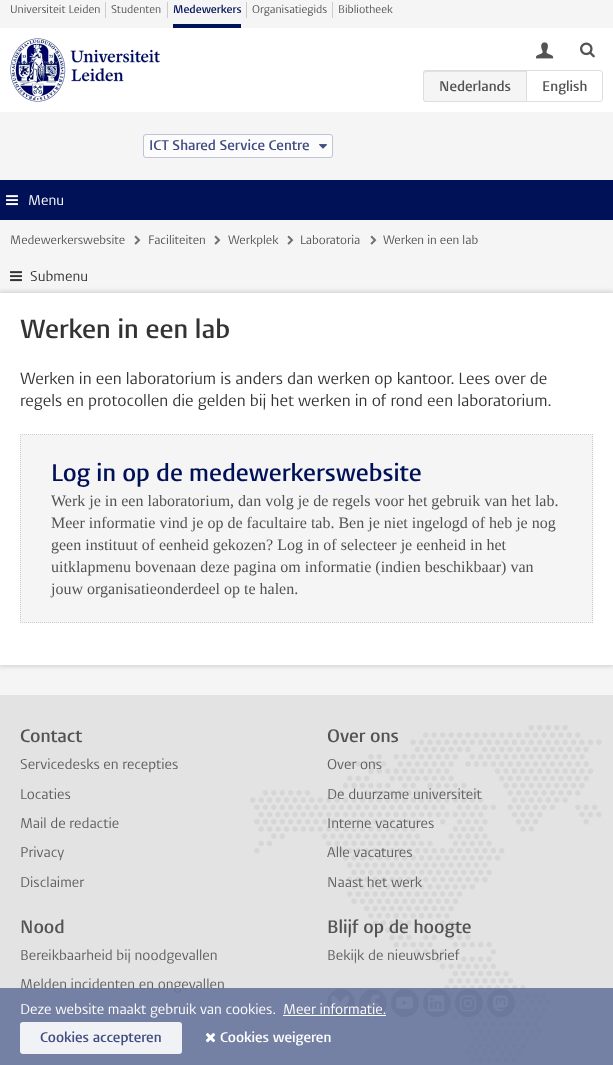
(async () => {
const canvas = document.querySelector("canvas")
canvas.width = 613
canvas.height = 1065
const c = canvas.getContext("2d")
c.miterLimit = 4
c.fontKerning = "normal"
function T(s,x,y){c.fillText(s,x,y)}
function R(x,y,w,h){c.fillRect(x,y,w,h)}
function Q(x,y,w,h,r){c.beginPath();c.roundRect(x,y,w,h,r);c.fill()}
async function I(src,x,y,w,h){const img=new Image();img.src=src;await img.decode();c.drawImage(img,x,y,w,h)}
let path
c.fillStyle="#f5f5f5"
R(0,0,613,1065)
c.fillStyle="#fff"
R(0,28,613,84)
c.fillStyle="#ccc"
R(105,2,1,16)
c.font="11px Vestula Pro"
c.fillStyle="#535353"
T("Universiteit Leiden",10,13)
c.fillStyle="#ccc"
R(167,2,1,16)
c.fillStyle="#535353"
T("Studenten",111,13)
c.fillStyle="#ccc"
R(246,2,1,16)
c.font="600 11px Vestula Pro"
c.fillStyle="#001158"
T("Medewerkers",173,13)
R(173,24,68,4)
c.fillStyle="#ccc"
R(332,2,1,16)
c.font="11px Vestula Pro"
c.fillStyle="#535353"
T("Organisatiegids",252,13)
T("Bibliotheek",338,13)
await I("1.png",10,38,150,64)
await I("2.png",536,42,18,17)
await I("3.png",580,42,15,16)
c.fillStyle="#f5f5f5"
c.beginPath()
c.roundRect(423,70,104,32,[3,0,0,3])
c.fill()
c.fillStyle="#e1e1e1"
path = new Path2D("M426 72h100v-1h-100c-2 0-2 2-2 3c0-1 1-2 2-2z")
c.fill(path)
c.beginPath()
c.roundRect(423.5,70.5,103,31,[2.5,0,0,2.5])
c.strokeStyle="#ddd"
c.stroke()
c.font="600 14px Vestula Pro"
c.fillStyle="#535353"
T("Nederlands",439,91)
c.fillStyle="#fff"
c.beginPath()
c.roundRect(526.5,70.5,76,31,[0,2.5,2.5,0])
c.fill()
c.stroke()
c.fillStyle="#535353"
T("English",542,91)
c.fillStyle="#fcfcfc"
c.beginPath()
c.roundRect(143.5,134.5,189,23,2.5)
c.fill()
c.strokeStyle="#bfc3d5"
c.stroke()
c.fillStyle="#404d82"
T("ICT Shared Service Centre",149,150)
await I("4.png",319,144,8,5)
c.fillStyle="#001158"
R(0,180,613,40)
await I("5.png",6,195,12,11)
c.font="14px Vestula Pro"
c.fillStyle="#fff"
T("Menu",28,205)
c.font="12px Vestula Pro"
c.fillStyle="#535353"
T("Medewerkerswebsite",10,244)
await I("6.png",134,235,7,10)
T("Faciliteiten",148,244)
await I("6.png",214,235,7,10)
T("Werkplek",228,244)
await I("6.png",287,235,7,10)
T("Laboratoria",300,244)
await I("6.png",370,235,7,10)
T("Werken in een lab",383,244)
await I("7.png",10,271,12,11)
c.font="14px Vestula Pro"
c.fillStyle="#333"
T("Submenu",30,281)
c.fillStyle="#786e644d"
c.filter="blur(2.5px)"
c.beginPath()
c.rect(-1,292,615,374)
c.fill()
c.filter="none"
c.fillStyle="#fff"
R(0,293,613,372)
c.font="600 26px Vestula Pro"
c.fillStyle="#333"
T("Werken in een lab",20,338)
c.font="16px Vestula Pro"
T("Werken in een laboratorium is anders dan werken op kantoor. Lees over de",20,384)
T("regels en protocollen die gelden bij het werken in of rond een laboratorium.",20,406)
c.fillStyle="#f5f5f5"
R(20,434,573,189)
path = new Path2D("M20 434.5h573")
c.strokeStyle="#ccc"
c.setLineDash([1,1])
c.stroke(path)
path = new Path2D("M592.5 434v189")
c.stroke(path)
path = new Path2D("M20 622.5h573")
c.stroke(path)
path = new Path2D("M20.5 434v189")
c.stroke(path)
c.font="600 24px Vestula Pro"
c.fillStyle="#001158"
T("Log in op de medewerkerswebsite",51,481)
c.font="16px Liberation Serif"
c.fillStyle="#535353"
T("Werk je in een laboratorium, dan volg je de regels voor het gebruik van het lab.",51,506)
T("Meer informatie vind je op de facultaire tab. Ben je niet ingelogd of heb je nog",51,528)
T("geen instituut of eenheid gekozen? Log in of selecteer je eenheid in het",51,550)
T("uitklapmenu bovenaan deze pagina om informatie (indien beschikbaar) van",51,572)
T("jouw organisatieonderdeel op te halen.",51,594)
c.fillStyle="#e3e3e3"
R(0,695,613,370)
await I("8.png",250,725,352,338)
c.font="600 18px Vestula Pro"
c.fillStyle="#535353"
T("Contact",20,742)
c.font="14px Vestula Pro"
c.fillStyle="#5e5e5e"
T("Servicedesks en recepties",20,769)
T("Locaties",20,799)
T("Mail de redactie",20,828)
T("Privacy",20,857)
T("Disclaimer",20,887)
c.font="600 18px Vestula Pro"
c.fillStyle="#535353"
T("Over ons",327,742)
c.font="14px Vestula Pro"
c.fillStyle="#5e5e5e"
T("Over ons",327,769)
T("De duurzame universiteit",327,799)
T("Interne vacatures",327,828)
T("Alle vacatures",327,857)
T("Naast het werk",327,887)
c.font="600 18px Vestula Pro"
c.fillStyle="#535353"
T("Nood",20,933)
c.font="14px Vestula Pro"
c.fillStyle="#5e5e5e"
T("Bereikbaarheid bij noodgevallen",20,960)
T("Melden incidenten en ongevallen",20,989)
c.font="600 18px Vestula Pro"
c.fillStyle="#535353"
T("Blijf op de hoogte",327,933)
c.font="14px Vestula Pro"
c.fillStyle="#5e5e5e"
T("Bekijk de nieuwsbrief",327,960)
c.fillStyle="#9a9a9a"
c.beginPath()
c.arc(341,1003,14,0,7)
c.fill()
await I("9.png",331,995,18,17)
c.fillStyle="#fff"
c.beginPath()
c.arc(373,1003,14,0,7)
c.fill()
await I("10.png",359,989,28,28)
c.fillStyle="#9a9a9a"
c.beginPath()
c.arc(405,1003,14,0,7)
c.fill()
await I("11.png",396,996,18,13)
c.beginPath()
c.arc(437,1003,14,0,7)
c.fill()
await I("12.png",428,995,17,17)
c.beginPath()
c.arc(469,1003,14,0,7)
c.fill()
await I("13.png",460,995,16,17)
c.beginPath()
c.arc(501,1003,14,0,7)
c.fill()
await I("14.png",493,995,15,17)
c.fillStyle="#68769ce6"
R(0,988,613,77)
c.fillStyle="#fff"
T("Deze website maakt gebruik van cookies.",20,1014)
T("Meer informatie.",283,1014)
R(283,1015,103,1)
c.fillStyle="#f1f2f6"
Q(20,1022,162,32,3)
c.font="600 14px Vestula Pro"
c.fillStyle="#404d82"
T("Cookies accepteren",40,1042)
await I("15.png",205,1033,11,10)
c.fillStyle="#fff"
T("Cookies weigeren",220,1042)
})()
